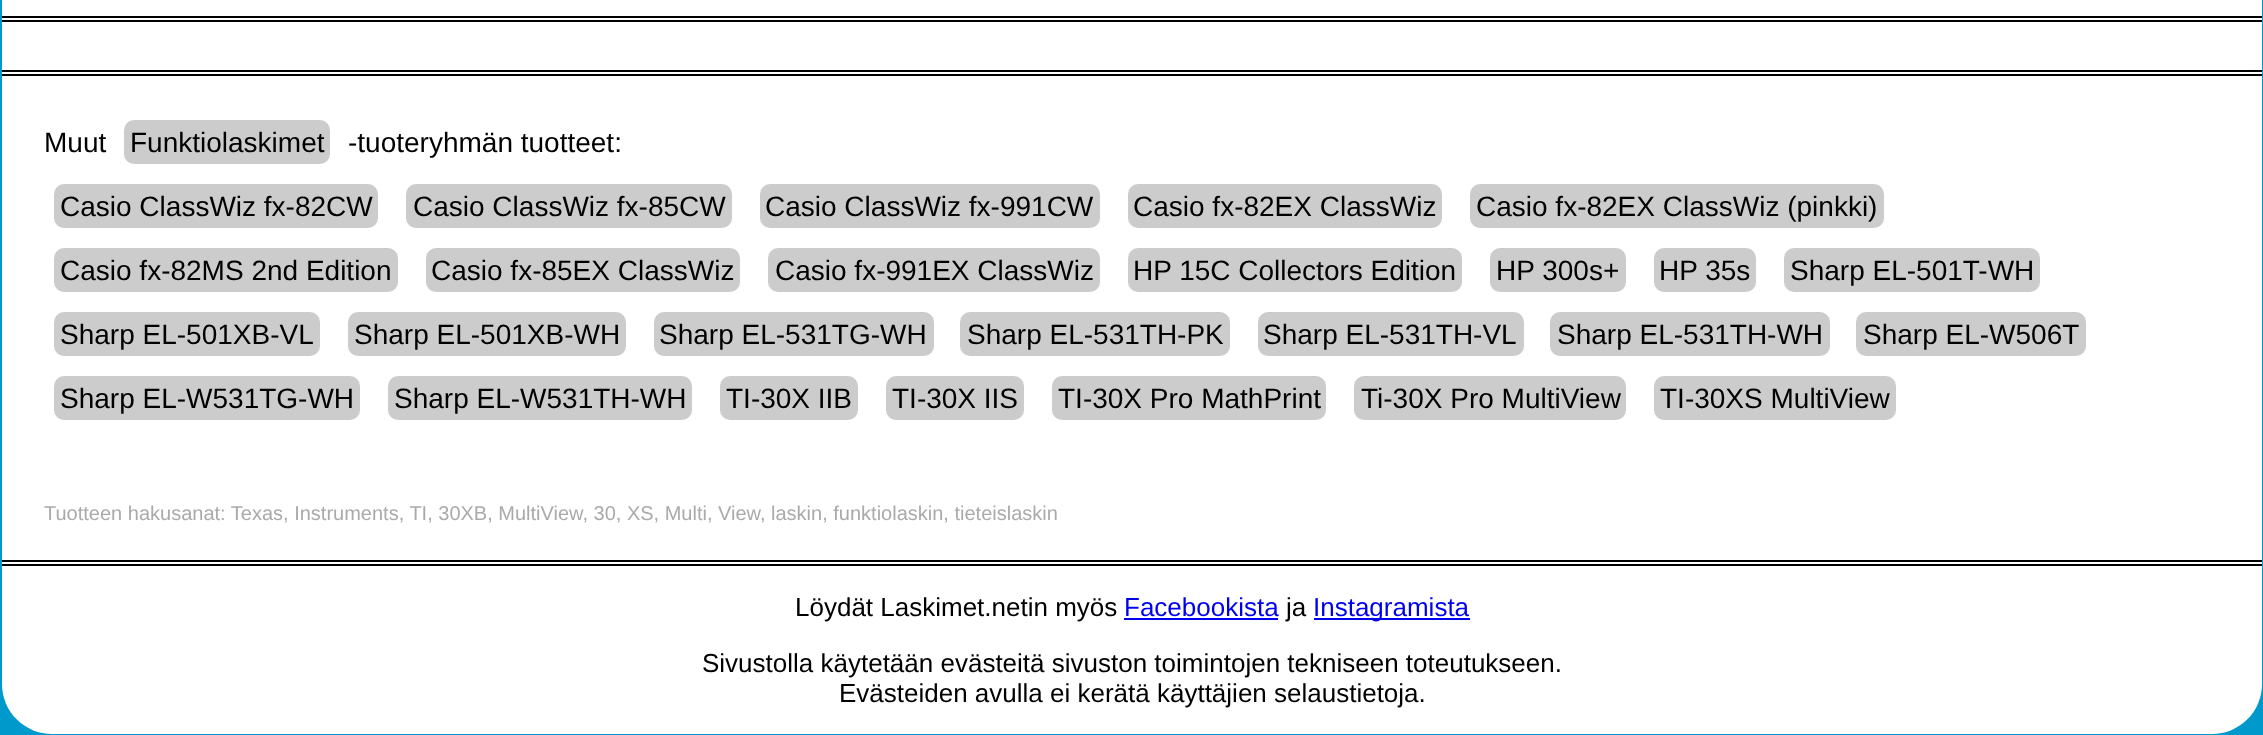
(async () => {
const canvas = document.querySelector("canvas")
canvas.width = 2263
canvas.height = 735
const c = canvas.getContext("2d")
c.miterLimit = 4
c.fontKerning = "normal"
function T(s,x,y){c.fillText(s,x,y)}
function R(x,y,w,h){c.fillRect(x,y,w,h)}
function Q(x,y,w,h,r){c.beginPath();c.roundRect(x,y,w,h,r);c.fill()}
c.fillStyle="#09c"
R(0,0,2263,735)
c.fillStyle="#fff"
Q(2,-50,2260,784,50)
c.fillStyle="#000"
R(2,16,2260,2)
R(2,20,2260,2)
R(2,70,2260,2)
R(2,74,2260,2)
c.font="28px Liberation Sans"
T("Muut",44,152)
c.fillStyle="#ccc"
Q(124,120,206,44,10)
c.fillStyle="#000"
T("Funktiolaskimet",130,152)
T("-tuoteryhmän tuotteet:",348,152)
c.fillStyle="#ccc"
Q(54,184,324,44,10)
c.fillStyle="#000"
T("Casio ClassWiz fx-82CW",60,216)
c.fillStyle="#ccc"
Q(406,184,326,44,10)
c.fillStyle="#000"
T("Casio ClassWiz fx-85CW",413,216)
c.fillStyle="#ccc"
Q(760,184,340,44,10)
c.fillStyle="#000"
T("Casio ClassWiz fx-991CW",765,216)
c.fillStyle="#ccc"
Q(1128,184,314,44,10)
c.fillStyle="#000"
T("Casio fx-82EX ClassWiz",1133,216)
c.fillStyle="#ccc"
Q(1470,184,414,44,10)
c.fillStyle="#000"
T("Casio fx-82EX ClassWiz (pinkki)",1476,216)
c.fillStyle="#ccc"
Q(54,248,344,44,10)
c.fillStyle="#000"
T("Casio fx-82MS 2nd Edition",60,280)
c.fillStyle="#ccc"
Q(426,248,314,44,10)
c.fillStyle="#000"
T("Casio fx-85EX ClassWiz",431,280)
c.fillStyle="#ccc"
Q(768,248,332,44,10)
c.fillStyle="#000"
T("Casio fx-991EX ClassWiz",775,280)
c.fillStyle="#ccc"
Q(1128,248,334,44,10)
c.fillStyle="#000"
T("HP 15C Collectors Edition",1133,280)
c.fillStyle="#ccc"
Q(1490,248,136,44,10)
c.fillStyle="#000"
T("HP 300s+",1496,280)
c.fillStyle="#ccc"
Q(1654,248,102,44,10)
c.fillStyle="#000"
T("HP 35s",1659,280)
c.fillStyle="#ccc"
Q(1784,248,256,44,10)
c.fillStyle="#000"
T("Sharp EL-501T-WH",1790,280)
c.fillStyle="#ccc"
Q(54,312,266,44,10)
c.fillStyle="#000"
T("Sharp EL-501XB-VL",60,344)
c.fillStyle="#ccc"
Q(348,312,278,44,10)
c.fillStyle="#000"
T("Sharp EL-501XB-WH",354,344)
c.fillStyle="#ccc"
Q(654,312,280,44,10)
c.fillStyle="#000"
T("Sharp EL-531TG-WH",659,344)
c.fillStyle="#ccc"
Q(960,312,270,44,10)
c.fillStyle="#000"
T("Sharp EL-531TH-PK",967,344)
c.fillStyle="#ccc"
Q(1258,312,266,44,10)
c.fillStyle="#000"
T("Sharp EL-531TH-VL",1263,344)
c.fillStyle="#ccc"
Q(1550,312,280,44,10)
c.fillStyle="#000"
T("Sharp EL-531TH-WH",1557,344)
c.fillStyle="#ccc"
Q(1856,312,230,44,10)
c.fillStyle="#000"
T("Sharp EL-W506T",1863,344)
c.fillStyle="#ccc"
Q(54,376,306,44,10)
c.fillStyle="#000"
T("Sharp EL-W531TG-WH",60,408)
c.fillStyle="#ccc"
Q(388,376,304,44,10)
c.fillStyle="#000"
T("Sharp EL-W531TH-WH",394,408)
c.fillStyle="#ccc"
Q(720,376,138,44,10)
c.fillStyle="#000"
T("TI-30X IIB",726,408)
c.fillStyle="#ccc"
Q(886,376,138,44,10)
c.fillStyle="#000"
T("TI-30X IIS",892,408)
c.fillStyle="#ccc"
Q(1052,376,274,44,10)
c.fillStyle="#000"
T("TI-30X Pro MathPrint",1058,408)
c.fillStyle="#ccc"
Q(1354,376,272,44,10)
c.fillStyle="#000"
T("Ti-30X Pro MultiView",1361,408)
c.fillStyle="#ccc"
Q(1654,376,242,44,10)
c.fillStyle="#000"
T("TI-30XS MultiView",1660,408)
c.font="20px Liberation Sans"
c.fillStyle="#aaa"
T("Tuotteen hakusanat: Texas, Instruments, TI, 30XB, MultiView, 30, XS, Multi, View, laskin, funktiolaskin, tieteislaskin",44,520)
c.fillStyle="#000"
R(2,560,2260,2)
R(2,564,2260,2)
c.font="26px Liberation Sans"
T("Löydät Laskimet.netin myös",795,616)
c.fillStyle="#00e"
T("Facebookista",1124,616)
R(1124,618,154,2)
c.fillStyle="#000"
T("ja",1286,616)
c.fillStyle="#00e"
R(1314,618,156,2)
T("Instagramista",1313,616)
c.fillStyle="#000"
T("Sivustolla käytetään evästeitä sivuston toimintojen tekniseen toteutukseen.",702,672)
T("Evästeiden avulla ei kerätä käyttäjien selaustietoja.",839,702)
})()
